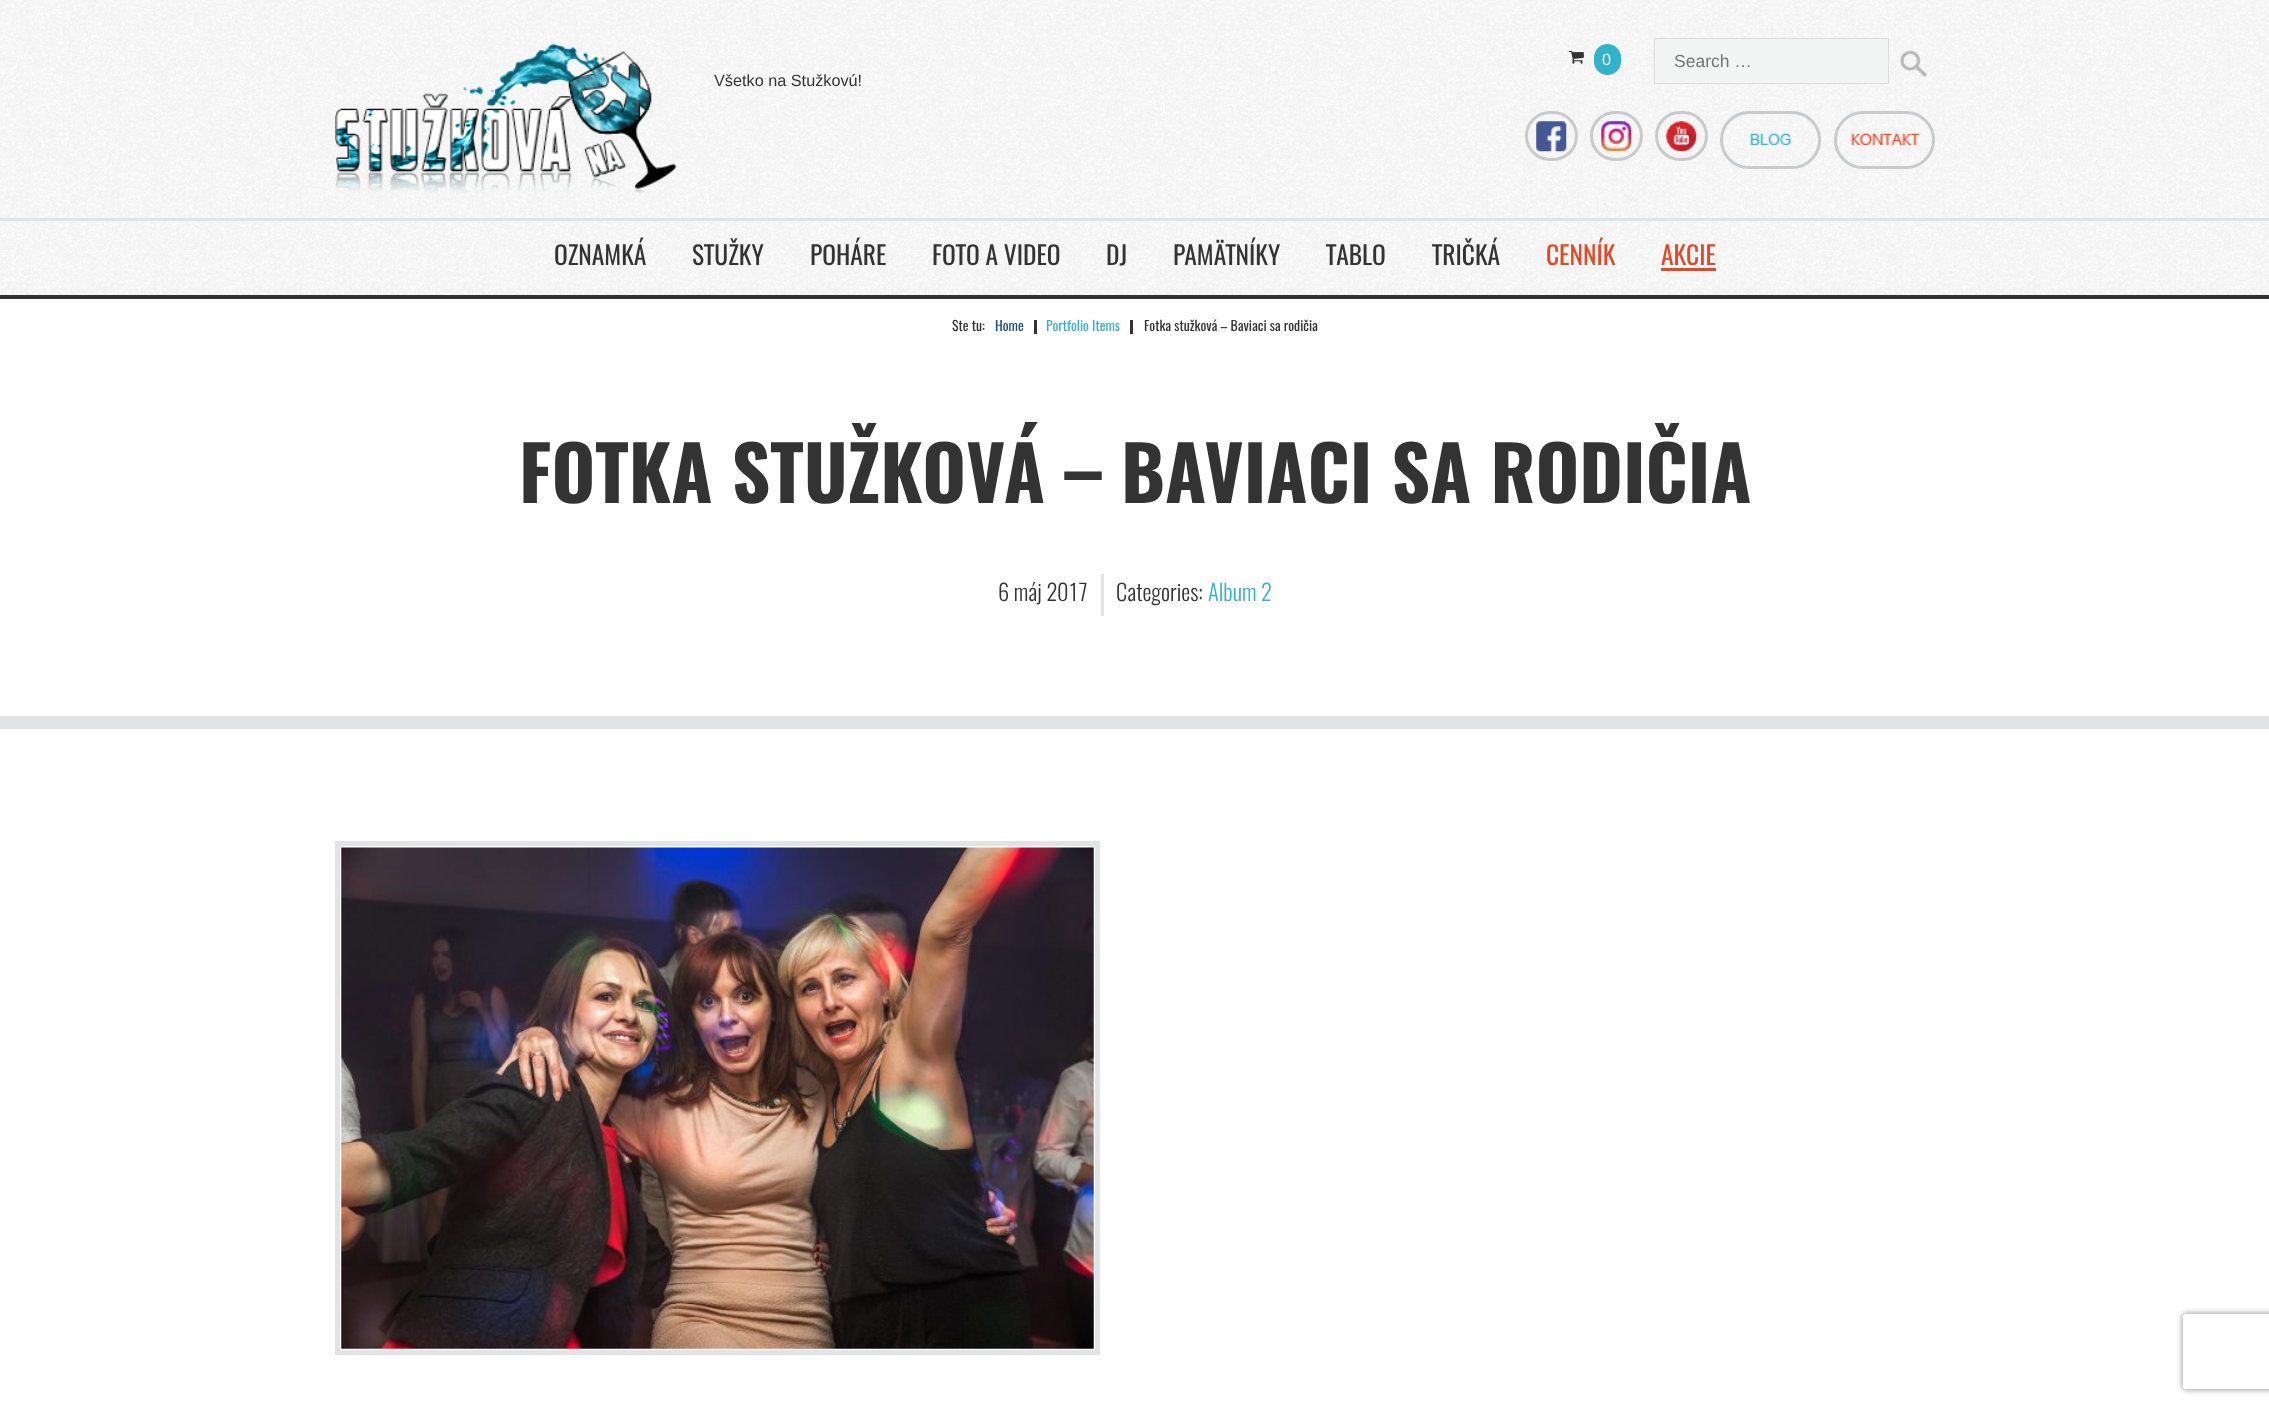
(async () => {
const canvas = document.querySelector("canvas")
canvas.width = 2269
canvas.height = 1406
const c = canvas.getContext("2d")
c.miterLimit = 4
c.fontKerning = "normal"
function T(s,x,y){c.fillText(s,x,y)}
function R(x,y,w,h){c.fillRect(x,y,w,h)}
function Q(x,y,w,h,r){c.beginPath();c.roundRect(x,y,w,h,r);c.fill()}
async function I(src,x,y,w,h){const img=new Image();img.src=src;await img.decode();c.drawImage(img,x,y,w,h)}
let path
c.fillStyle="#fff"
R(0,0,2269,1406)
await I("1.png",0,0,2269,295)
c.fillStyle="#333"
R(0,295,2269,4)
c.fillStyle="#e2e3e4"
R(0,218,2269,3)
await I("2.png",1568,50,16,14)
c.fillStyle="#33b2cc"
Q(1594,44,27,31,13.5)
c.font="16.25px Liberation Sans"
c.fillStyle="#fff"
T("0",1602,65)
c.fillStyle="#f3f4f4"
c.beginPath()
c.rect(1654.5,38.5,234,45)
c.fill()
c.strokeStyle="#dadbdd"
c.stroke()
c.font="17.5px Liberation Sans"
c.fillStyle="#757575"
T("Search …",1674,67)
await I("3.png",1900,50,28,27)
await I("4.png",335,43,342,150)
c.font="16.25px Liberation Sans"
c.fillStyle="#333"
T("Všetko na Stužkovú!",714,86)
c.beginPath()
c.roundRect(1526.5,112.5,50,47,23.5)
c.strokeStyle="#c8cacb"
c.lineWidth=3
c.stroke()
await I("5.png",1536,121,31,31)
c.beginPath()
c.roundRect(1591.5,112.5,50,47,23.5)
c.stroke()
await I("6.png",1601,121,31,31)
c.beginPath()
c.roundRect(1656.5,112.5,50,47,23.5)
c.stroke()
await I("7.png",1666,121,31,31)
c.beginPath()
c.roundRect(1721.5,112.5,98,55,27.5)
c.stroke()
await I("8.png",1750,133,42,13)
c.beginPath()
c.roundRect(1835.5,112.5,98,55,27.5)
c.stroke()
await I("9.png",1851,133,70,13)
c.font="25.5px Oswald"
T("OZNAMKÁ",554,265)
T("STUŽKY",692,265)
T("POHÁRE",810,265)
T("FOTO A VIDEO",932,265)
T("DJ",1106,265)
T("PAMÄTNÍKY",1173,265)
T("TABLO",1326,265)
T("TRIČKÁ",1432,265)
c.fillStyle="#e64725"
T("CENNÍK",1546,265)
T("AKCIE",1661,265)
R(1661,268,55,3)
c.font="13.75px Oswald"
c.fillStyle="#333"
T("Ste tu:",952,331)
c.fillStyle="#1c4c87"
T("Home",995,331)
c.fillStyle="#333"
R(1034,320,3,14)
c.fillStyle="#33b2cc"
T("Portfolio Items",1046,331)
c.fillStyle="#333"
R(1130,320,3,14)
T("Fotka stužková – Baviaci sa rodičia",1144,331)
c.fillStyle="#e2e3e4"
R(0,716,2269,13)
c.font="bold 75px Oswald"
c.fillStyle="#333"
T("FOTKA STUŽKOVÁ – BAVIACI SA RODIČIA",519,503)
c.fillStyle="#e2e3e4"
R(1101,574,3,42)
c.font="300 22.5px Oswald"
c.fillStyle="#333"
T("6 máj 2017",998,601)
T("Categories:",1116,601)
c.fillStyle="#33b2cc"
T("Album 2",1208,601)
c.strokeStyle="#e2e3e4"
c.lineWidth=5
c.strokeRect(337.5,843.5,760,509)
await I("10.png",341,847,753,502)
c.save()
path = new Path2D("M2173 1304h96v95h-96zm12.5 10h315c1.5 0 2.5 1 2.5 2.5v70c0 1.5-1 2.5-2.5 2.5h-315c-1.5 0-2.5-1-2.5-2.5v-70c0-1.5 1-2.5 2.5-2.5z")
c.clip(path,"evenodd")
c.fillStyle="#808080"
c.filter="blur(3px)"
c.beginPath()
c.roundRect(2183,1314,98,75,2.5)
c.fill()
c.filter="none"
c.restore()
})()
